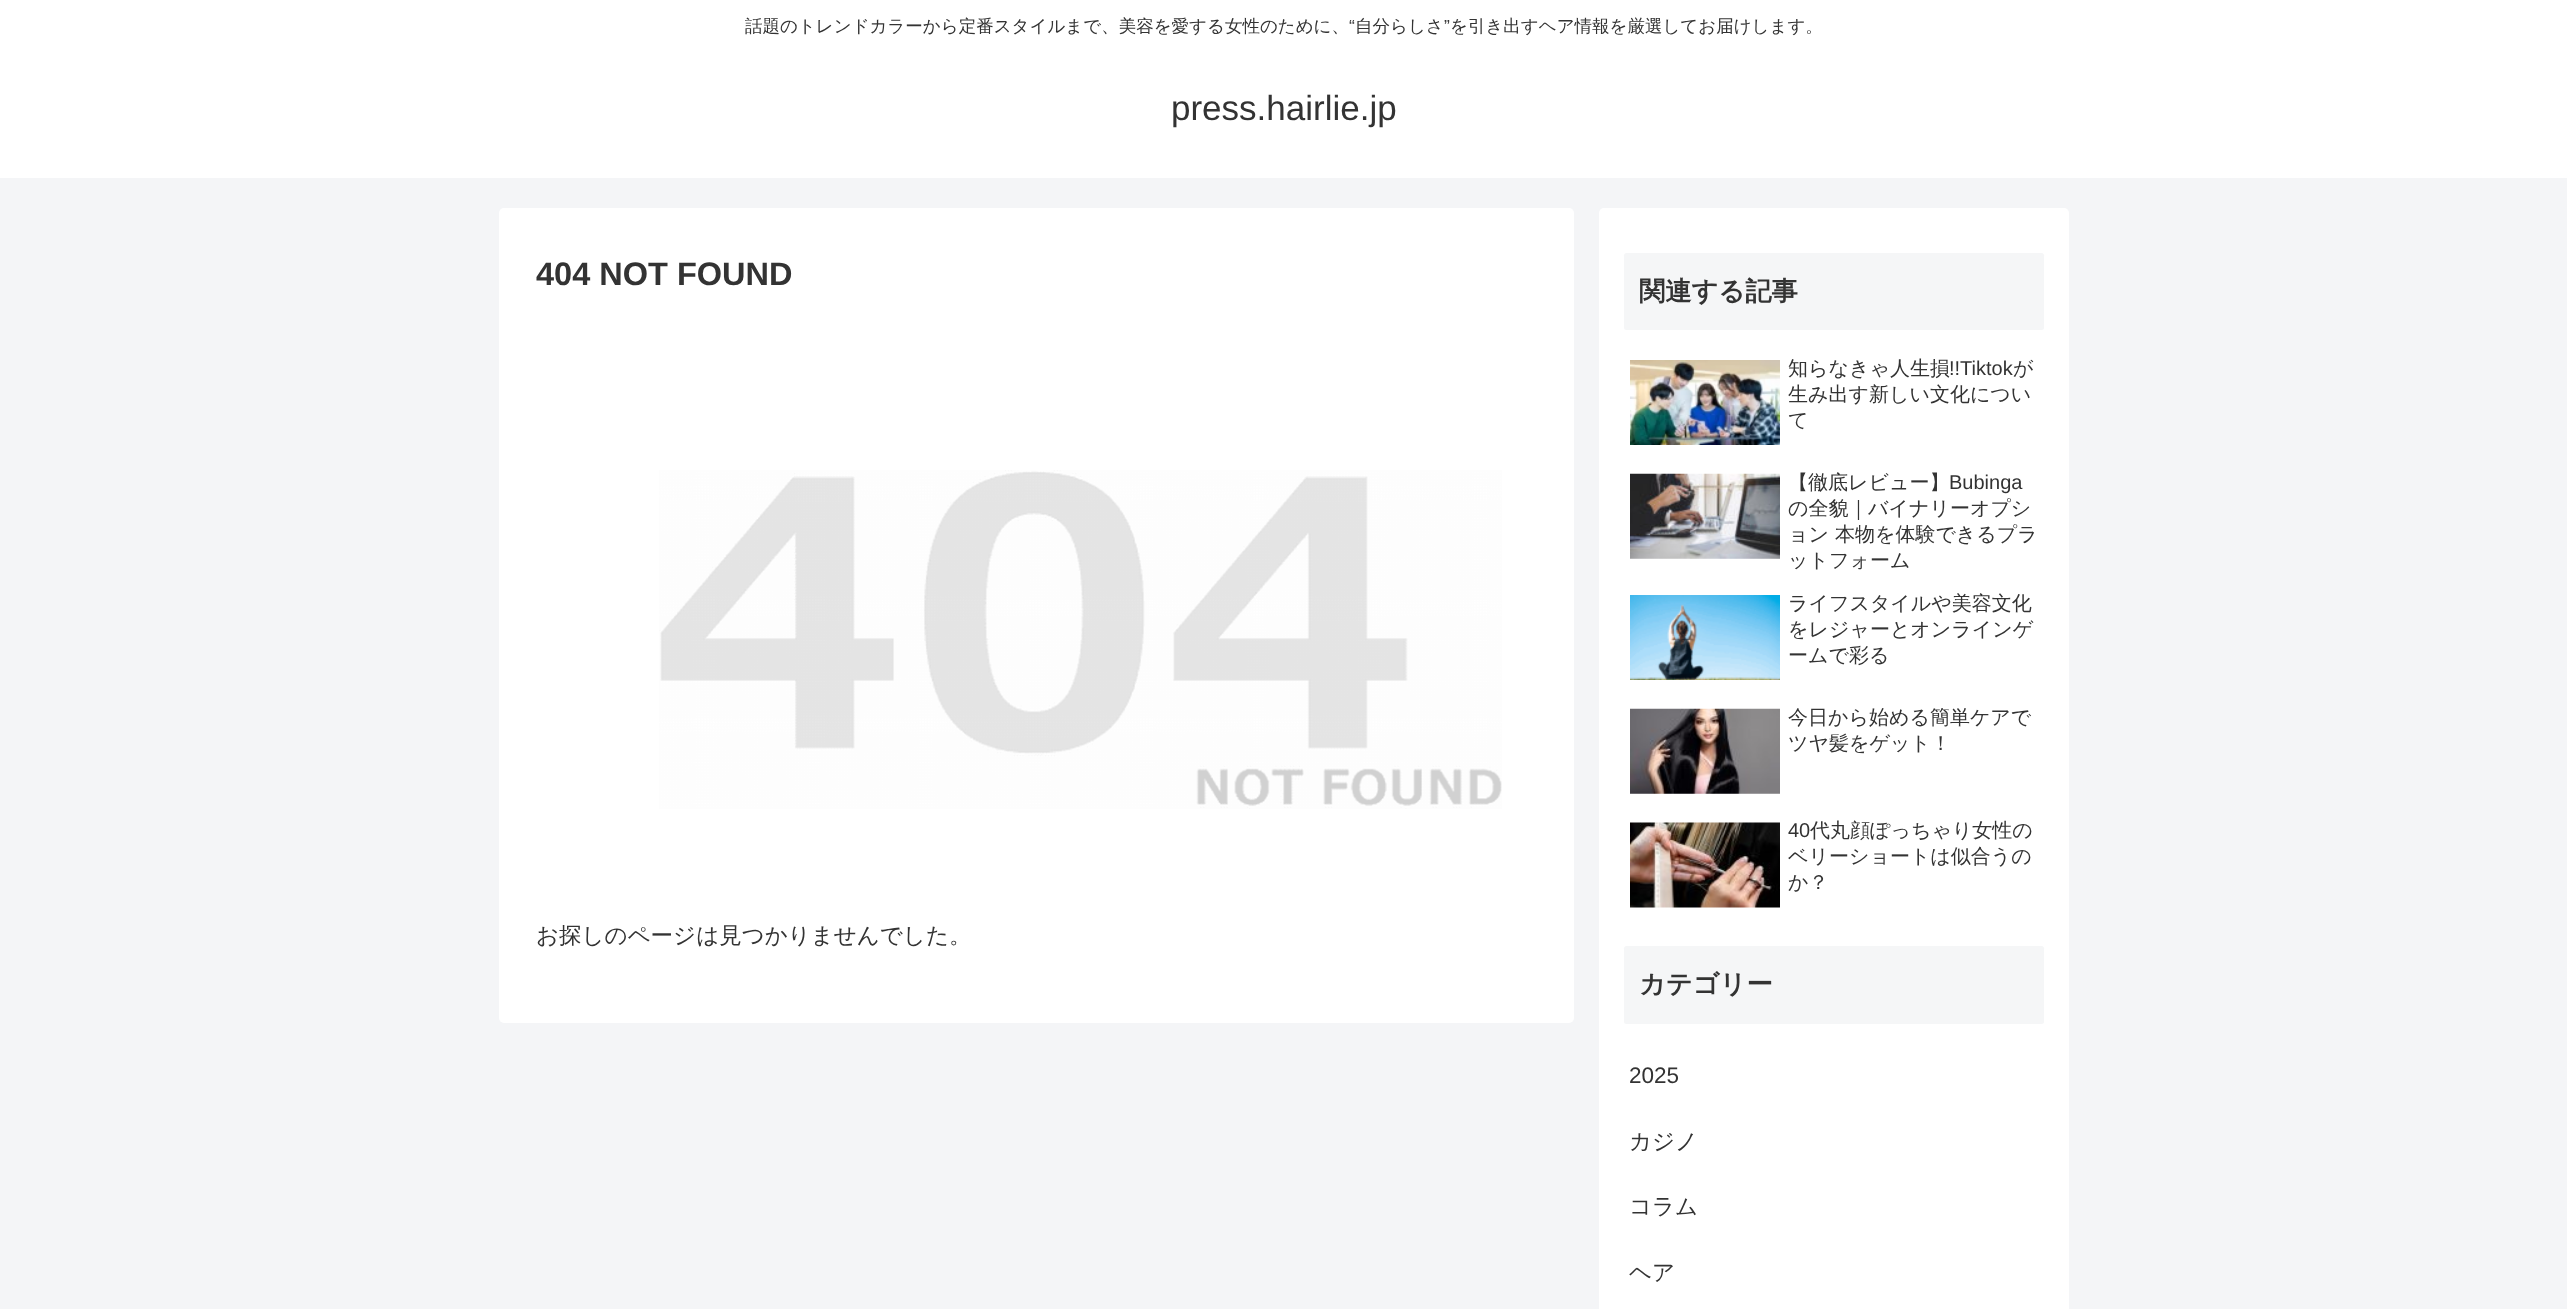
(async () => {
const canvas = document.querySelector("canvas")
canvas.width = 2567
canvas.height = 1309
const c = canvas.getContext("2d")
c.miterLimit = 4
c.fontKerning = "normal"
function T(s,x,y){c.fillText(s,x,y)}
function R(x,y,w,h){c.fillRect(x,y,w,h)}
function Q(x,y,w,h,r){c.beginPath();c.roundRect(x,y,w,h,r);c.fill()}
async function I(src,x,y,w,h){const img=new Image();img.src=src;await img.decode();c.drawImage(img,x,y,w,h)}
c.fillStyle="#f4f5f7"
R(0,0,2567,1309)
c.fillStyle="#fff"
R(0,0,2567,178)
c.font="500 17.5px WenQuanYi Zen Hei"
c.fillStyle="#333"
T("話題のトレンドカラーから定番スタイルまで、美容を愛する女性のために、",745,32)
c.font="17.5px Liberation Sans"
T("“",1349,32)
c.font="500 17.5px WenQuanYi Zen Hei"
T("自分らしさ",1355,32)
c.font="17.5px Liberation Sans"
T("”",1444,32)
c.font="500 17.5px WenQuanYi Zen Hei"
T("を引き出すヘア情報を厳選してお届けします。",1450,32)
c.font="35px Liberation Sans"
T("press.hairlie.jp",1171,120)
c.fillStyle="#fff"
Q(499,208,1075,815,5)
c.font="bold 32.5px Liberation Sans"
c.fillStyle="#333"
T("404 NOT FOUND",536,285)
await I("1.png",659,470,843,339)
c.font="500 22.5px WenQuanYi Zen Hei"
T("お探しのページは見つかりませんでした。",536,943)
c.fillStyle="#fff"
Q(1599,208,470,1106,5)
c.fillStyle="#f5f6f7"
Q(1624,253,420,77,2.5)
c.font="bold 26.25px WenQuanYi Zen Hei"
c.fillStyle="#333"
T("関連する記事",1639,300)
await I("2.png",1630,360,150,85)
c.font="500 20px WenQuanYi Zen Hei"
T("知らなきゃ人生損",1788,375)
c.font="20px Liberation Sans"
T("!!Tiktok",1949,375)
c.font="500 20px WenQuanYi Zen Hei"
T("が",2013,375)
T("生み出す新しい文化につい",1788,401)
T("て",1788,427)
await I("3.png",1630,473,150,86)
T("【徹底レビュー】",1788,489)
c.font="20px Liberation Sans"
T("Bubinga",1949,489)
c.font="500 20px WenQuanYi Zen Hei"
T("の全貌｜バイナリーオプシ",1788,515)
T("ョン 本物を体験できるプラ",1788,541)
T("ットフォーム",1788,567)
await I("4.png",1630,595,150,85)
T("ライフスタイルや美容文化",1788,610)
T("をレジャーとオンラインゲ",1788,636)
T("ームで彩る",1788,662)
await I("5.png",1630,708,150,86)
T("今日から始める簡単ケアで",1788,724)
T("ツヤ髪をゲット！",1788,750)
await I("6.png",1630,822,150,86)
c.font="20px Liberation Sans"
T("40",1788,837)
c.font="500 20px WenQuanYi Zen Hei"
T("代丸顔ぽっちゃり女性の",1810,837)
T("ベリーショートは似合うの",1788,863)
T("か？",1788,889)
c.fillStyle="#f5f6f7"
Q(1624,946,420,78,2.5)
c.font="bold 26.25px WenQuanYi Zen Hei"
c.fillStyle="#333"
T("カテゴリー",1639,993)
c.font="22.5px Liberation Sans"
T("2025",1629,1083)
c.font="500 22.5px WenQuanYi Zen Hei"
T("カジノ",1629,1149)
T("コラム",1629,1214)
T("ヘア",1629,1280)
})()
